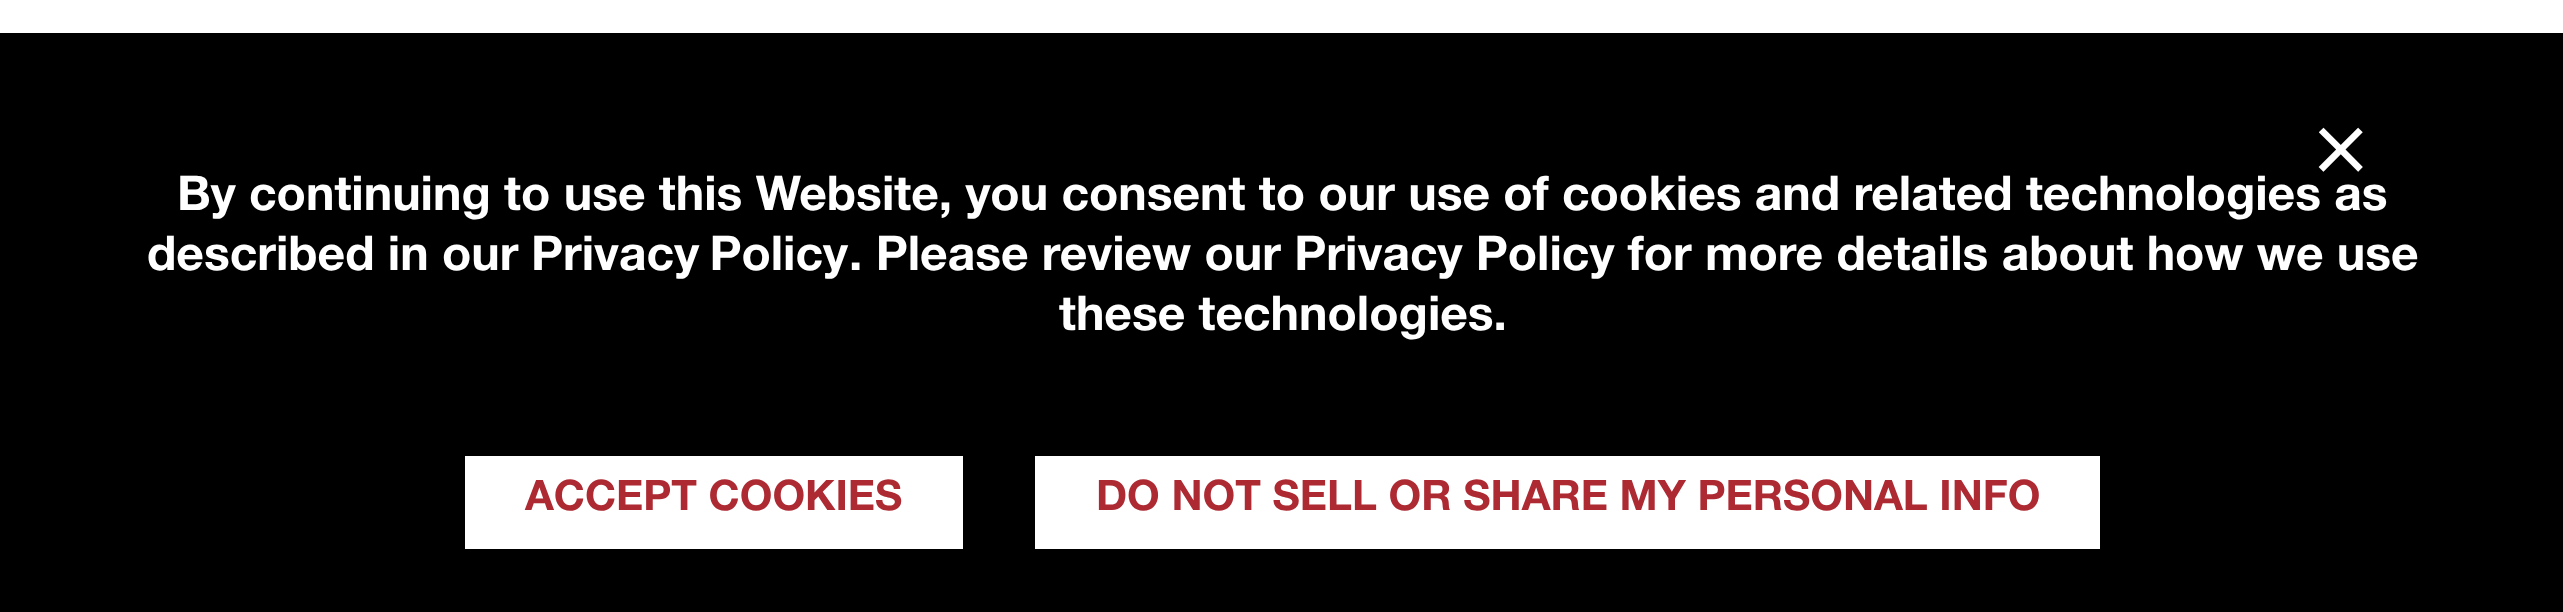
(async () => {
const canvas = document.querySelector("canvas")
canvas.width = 2563
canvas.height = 612
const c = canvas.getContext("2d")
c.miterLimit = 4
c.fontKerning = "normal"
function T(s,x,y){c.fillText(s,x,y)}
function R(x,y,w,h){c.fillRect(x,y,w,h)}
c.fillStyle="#fff"
R(0,0,2563,612)
c.fillStyle="#000"
R(0,33,2563,579)
c.font="96px Helvetica Neue"
c.fillStyle="#fff"
T("×",2312,174)
c.font="bold 48px Helvetica Neue"
T("By continuing to use this Website, you consent to our use of cookies and related technologies as",177,210)
T("described in our",147,270)
c.wordSpacing="-3px"
T("Privacy Policy",531,270)
c.wordSpacing="0px"
T(". Please review our Privacy Policy for more details about how we use",849,270)
T("these technologies.",1059,330)
R(465,456,498,93)
c.font="bold 42px Helvetica Neue"
c.fillStyle="#ad2a33"
T("ACCEPT COOKIES",525,510)
c.fillStyle="#fff"
R(1035,456,1065,93)
c.fillStyle="#ad2a33"
T("DO NOT SELL OR SHARE MY PERSONAL INFO",1096,510)
})()
